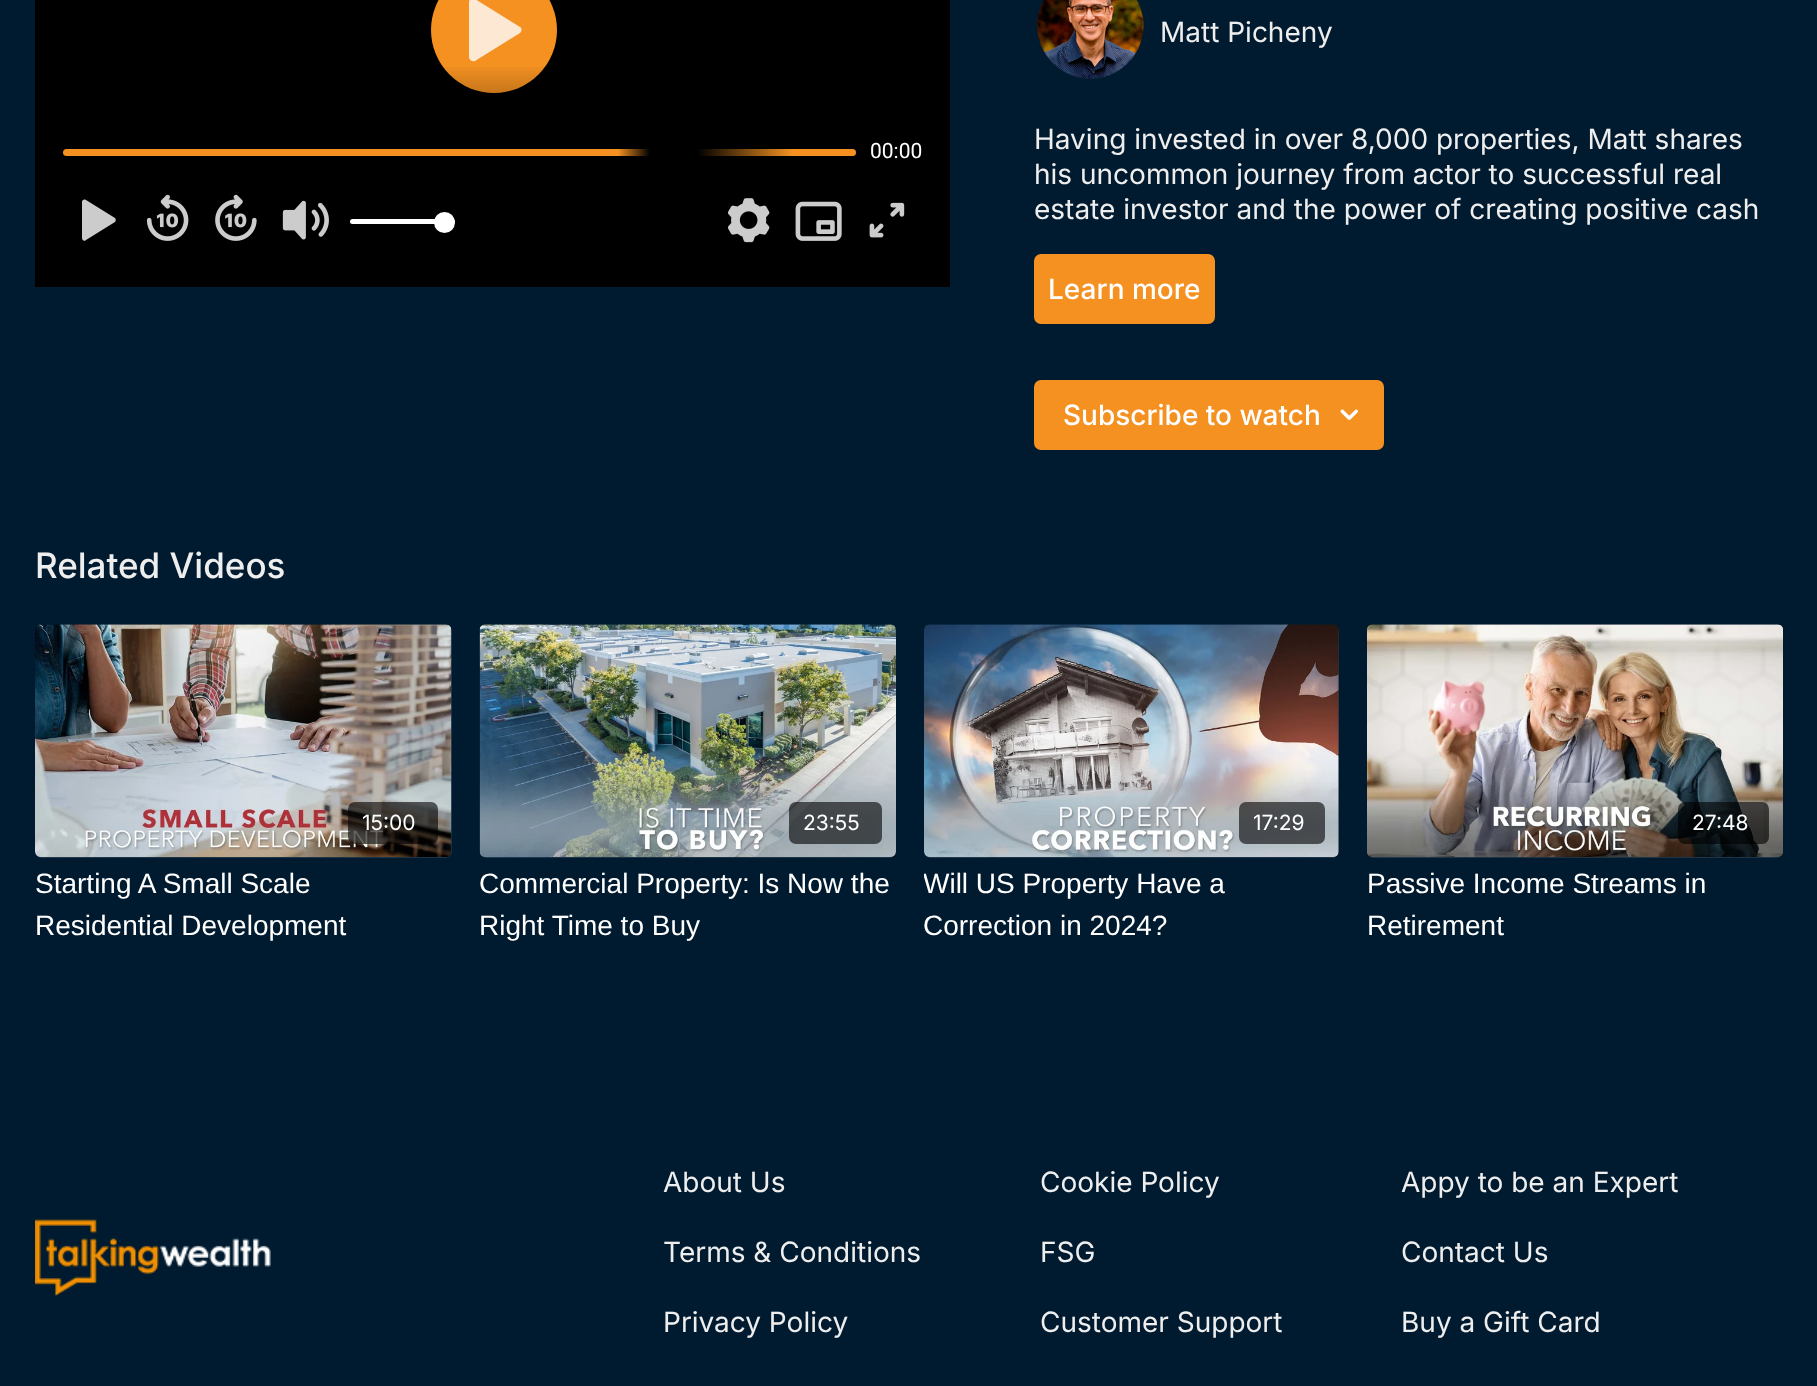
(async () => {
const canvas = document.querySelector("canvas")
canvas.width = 1817
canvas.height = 1386
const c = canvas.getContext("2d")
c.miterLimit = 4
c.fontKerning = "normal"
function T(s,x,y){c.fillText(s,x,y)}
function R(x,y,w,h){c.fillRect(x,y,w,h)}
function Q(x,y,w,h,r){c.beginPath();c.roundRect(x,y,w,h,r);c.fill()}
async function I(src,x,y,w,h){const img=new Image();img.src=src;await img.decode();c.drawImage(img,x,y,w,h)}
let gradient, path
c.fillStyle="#001b2f"
R(0,0,1817,1386)
c.fillStyle="#000"
R(35,0,915,287)
c.fillStyle="#f49121"
c.beginPath()
c.arc(494,30,63,0,7)
c.fill()
c.fillStyle="#fde9d3"
path = new Path2D("M475-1c-3-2-6 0-6 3v55c0 3 3 5 6 4l45-28c2-2 2-5 0-6z")
c.fill(path)
gradient = c.createLinearGradient(493,287,493,54)
gradient.addColorStop(.54,"#00000099")
gradient.addColorStop(.96,"#00000000")
c.fillStyle = gradient
R(443,67,102,26)
gradient = c.createLinearGradient(63,156,1649,156)
gradient.addColorStop(.35,"#f49121")
gradient.addColorStop(.37,"#000")
gradient.addColorStop(.4,"#000")
gradient.addColorStop(.46,"#f49121")
gradient.addColorStop(1,"#f49121")
c.fillStyle = gradient
Q(63,149,793,7,3.5)
c.font="21px Roboto"
c.fillStyle="#fff"
T("00:00",870,158)
c.fillStyle="#ccc"
path = new Path2D("M86 200c-2-1-4 0-4 2v36c0 2 2 4 4 2l29-18c1-1 1-3 0-4z")
c.fill(path)
await I("1.png",146,194,43,47)
await I("2.png",215,194,42,47)
await I("3.png",282,200,47,40)
c.fillStyle="#fff"
Q(350,219,105,5,2.5)
c.beginPath()
c.arc(444.5,222.5,10.5,0,7)
c.fill()
await I("4.png",727,198,43,45)
await I("5.png",795,201,47,40)
await I("6.png",869,202,36,36)
await I("7.png",1037,0,107,79)
c.font="28px Inter"
c.fillStyle="#eee"
T("Matt Picheny",1160,42)
T("Having invested in over 8,000 properties, Matt shares",1034,149)
T("his uncommon journey from actor to successful real",1034,184)
T("estate investor and the power of creating positive cash",1034,219)
c.fillStyle="#f59121"
Q(1034,254,181,70,7)
c.font="500 28px Inter"
c.fillStyle="#fff"
T("Learn more",1048,299)
c.fillStyle="#f59121"
Q(1034,380,350,70,7)
c.fillStyle="#fff"
T("Subscribe to watch",1063,425)
await I("8.png",1340,409,18,11)
c.font="500 35px Inter"
c.fillStyle="#eee"
T("Related Videos",35,578)
gradient = c.createLinearGradient(35,741,452,741)
gradient.addColorStop(.08,"#21394a")
gradient.addColorStop(.18,"#1f3648")
gradient.addColorStop(.33,"#1c3446")
c.fillStyle = gradient
Q(35,625,417,233,7)
await I("9.png",35,624,417,233)
c.fillStyle="#00000099"
Q(348,802,90,42,7)
c.font="21px Inter"
c.fillStyle="#fff"
T("15:00",362,830)
c.font="28px Liberation Sans"
T("Starting A Small Scale",35,893)
T("Residential Development",35,935)
gradient = c.createLinearGradient(480,741,896,741)
gradient.addColorStop(.08,"#21394a")
gradient.addColorStop(.18,"#1f3648")
gradient.addColorStop(.33,"#1c3446")
c.fillStyle = gradient
Q(480,625,416,233,7)
await I("10.png",479,624,417,233)
c.fillStyle="#00000099"
Q(789,802,93,42,7)
c.font="21px Inter"
c.fillStyle="#fff"
T("23:55",803,830)
c.font="28px Liberation Sans"
T("Commercial Property: Is Now the",479,893)
T("Right Time to Buy",479,935)
gradient = c.createLinearGradient(924,741,1339,741)
gradient.addColorStop(.08,"#21394a")
gradient.addColorStop(.18,"#1f3648")
gradient.addColorStop(.33,"#1c3446")
c.fillStyle = gradient
Q(924,625,415,233,7)
await I("11.png",924,624,415,233)
c.fillStyle="#00000099"
Q(1239,802,86,42,7)
c.font="21px Inter"
c.fillStyle="#fff"
T("17:29",1253,830)
c.save()
c.beginPath()
c.rect(924,863,415,84)
c.clip()
c.font="28px Liberation Sans"
T("Will US Property Have a",923,893)
c.restore()
c.font="28px Liberation Sans"
T("Correction in 2024?",923,935)
gradient = c.createLinearGradient(1367,741,1783,741)
gradient.addColorStop(.08,"#21394a")
gradient.addColorStop(.18,"#1f3648")
gradient.addColorStop(.33,"#1c3446")
c.fillStyle = gradient
Q(1367,625,416,233,7)
await I("12.png",1367,624,416,233)
c.fillStyle="#00000099"
Q(1678,802,91,42,7)
c.font="21px Inter"
c.fillStyle="#fff"
T("27:48",1692,830)
c.font="28px Liberation Sans"
T("Passive Income Streams in",1367,893)
T("Retirement",1367,935)
await I("13.png",35,1219,236,77)
c.font="28px Inter"
c.fillStyle="#eee"
T("About Us",663,1192)
T("Cookie Policy",1040,1192)
T("Appy to be an Expert",1401,1192)
T("Terms & Conditions",663,1262)
T("FSG",1040,1262)
T("Contact Us",1401,1262)
T("Privacy Policy",663,1332)
T("Customer Support",1040,1332)
T("Buy a Gift Card",1401,1332)
})()
